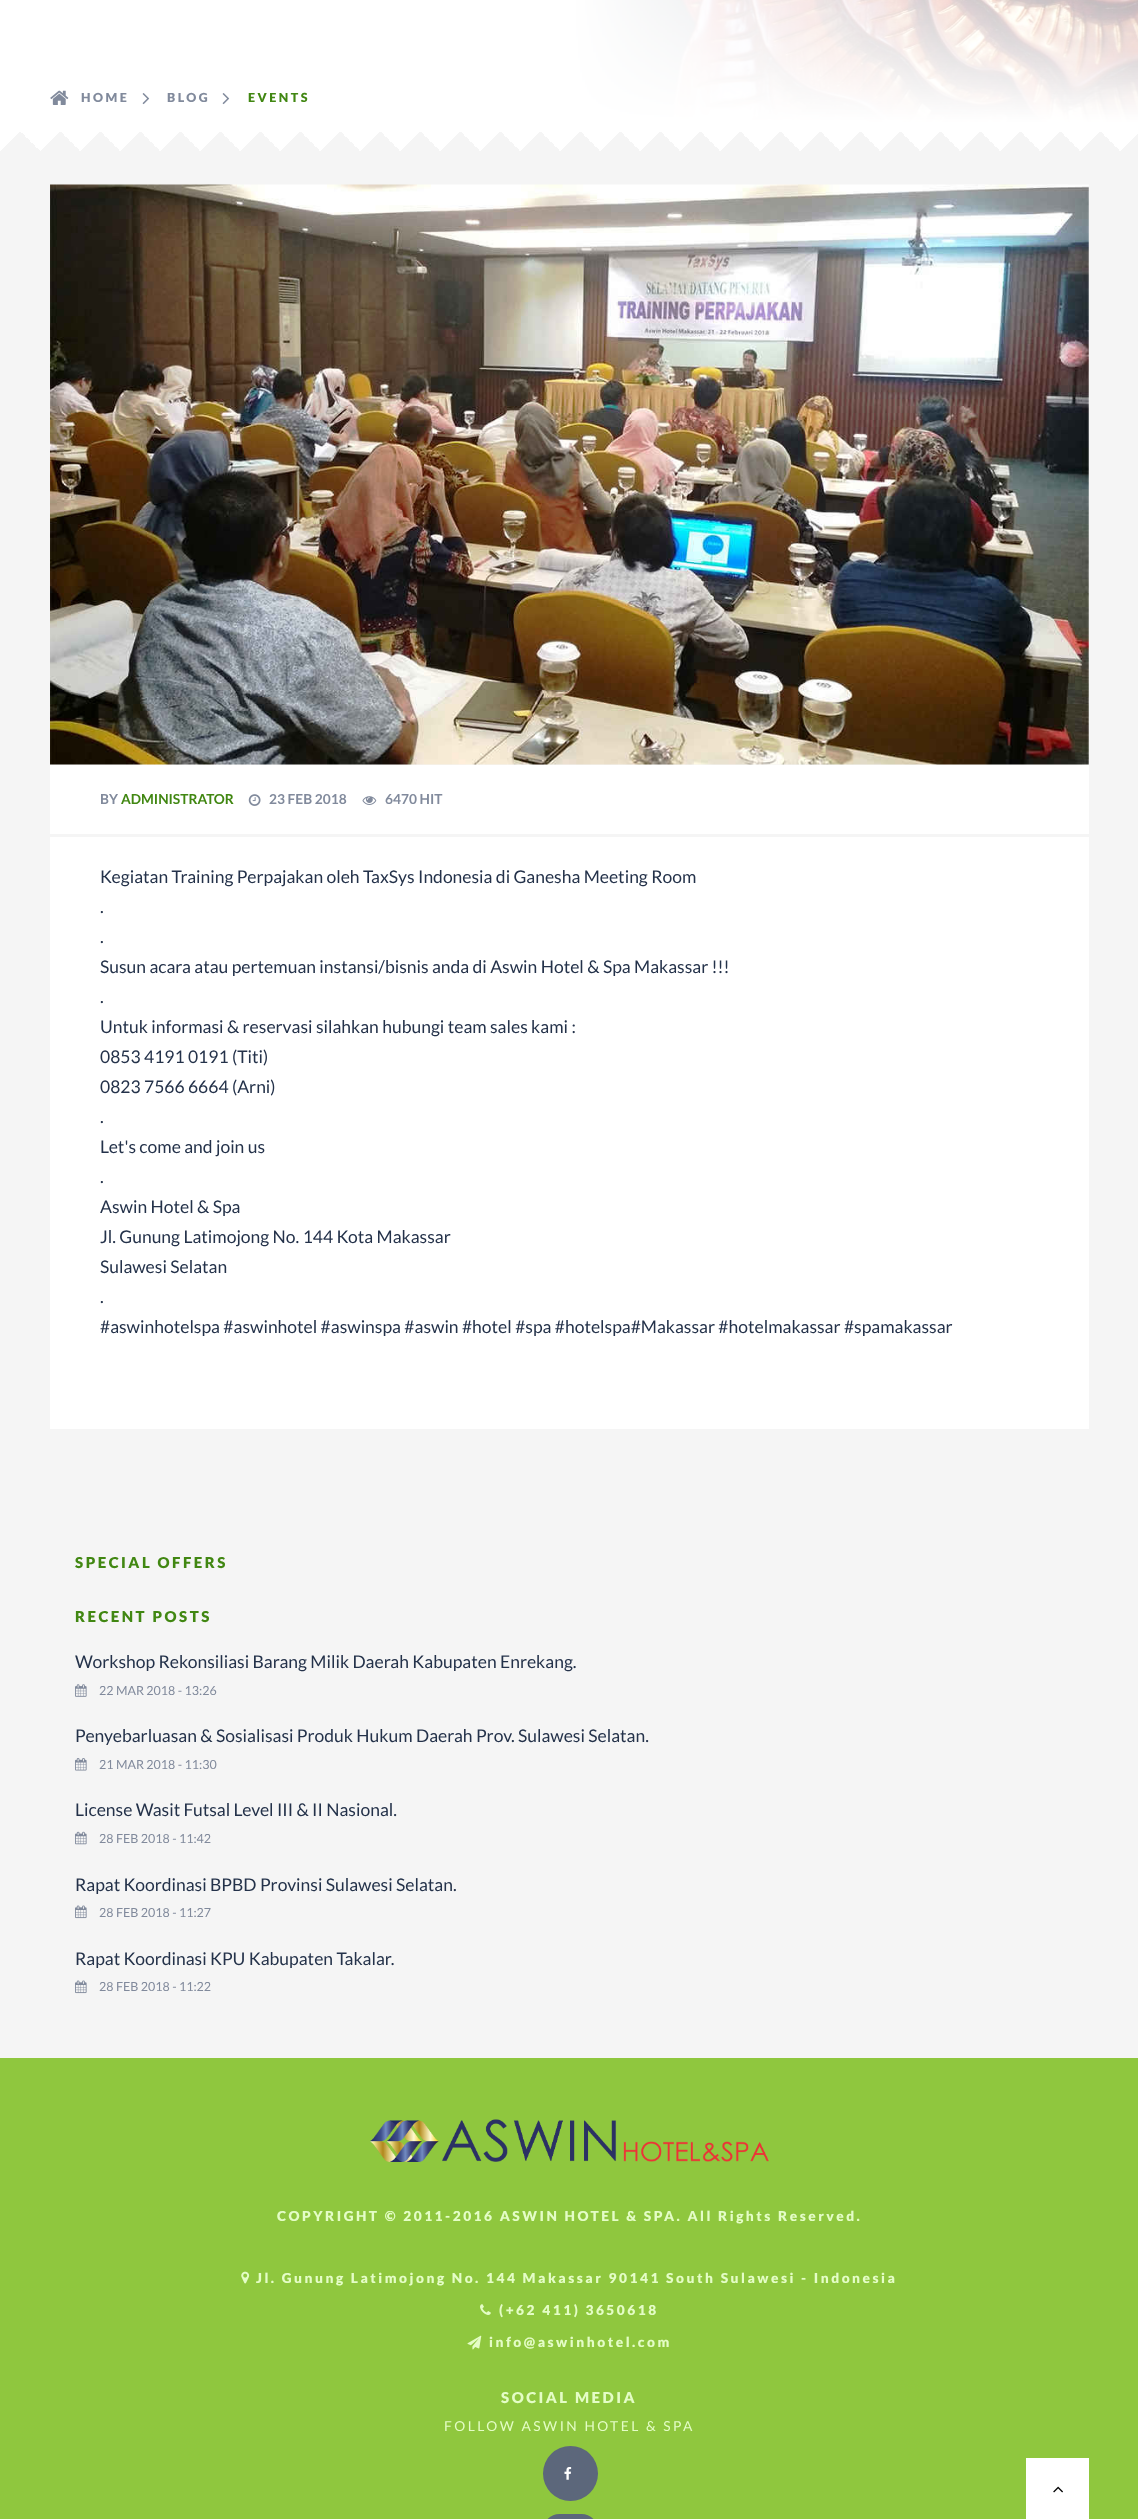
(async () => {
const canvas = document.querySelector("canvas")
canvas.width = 1138
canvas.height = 2519
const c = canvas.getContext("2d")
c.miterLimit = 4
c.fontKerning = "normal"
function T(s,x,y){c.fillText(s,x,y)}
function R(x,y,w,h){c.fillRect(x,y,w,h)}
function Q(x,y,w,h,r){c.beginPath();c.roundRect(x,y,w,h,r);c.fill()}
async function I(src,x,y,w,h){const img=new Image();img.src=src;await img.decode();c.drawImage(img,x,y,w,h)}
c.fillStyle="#f5f5f5"
R(0,0,1138,2519)
c.fillStyle="#fff"
R(0,0,1138,123)
await I("1.png",50,90,19,15)
c.letterSpacing="2.5px"
c.font="900 12.5px Lato"
c.fillStyle="#818a9c"
T("HOME",81,102)
await I("2.png",142,93,8,12)
T("BLOG",167,102)
await I("2.png",222,93,8,12)
c.fillStyle="#418712"
T("EVENTS",248,102)
await I("3.png",570,0,568,122)
await I("4.png",0,123,1138,28)
await I("5.png",20,123,1100,28)
await I("6.png",50,184,1039,581)
c.fillStyle="#fff"
R(50,765,1039,664)
c.fillStyle="#f5f5f5"
R(50,834,1039,3)
c.letterSpacing="0px"
c.font="bold 13.75px Lato"
c.fillStyle="#818a9c"
T("BY",100,804)
c.fillStyle="#418712"
T("ADMINISTRATOR",121,804)
await I("7.png",248,794,13,12)
c.fillStyle="#818a9c"
T("23 FEB 2018",269,804)
await I("8.png",362,796,15,9)
T("6470 HIT",385,804)
c.font="17.5px Lato"
c.fillStyle="#24324a"
T("Kegiatan Training Perpajakan oleh TaxSys Indonesia di Ganesha Meeting Room",100,883)
T(".",100,913)
T(".",100,943)
T("Susun acara atau pertemuan instansi/bisnis anda di Aswin Hotel & Spa Makassar !!!",100,973)
T(".",100,1003)
T("Untuk informasi & reservasi silahkan hubungi team sales kami :",100,1033)
T("0853 4191 0191 (Titi)",100,1063)
T("0823 7566 6664 (Arni)",100,1093)
T(".",100,1123)
T("Let's come and join us",100,1153)
T(".",100,1183)
T("Aswin Hotel & Spa",100,1213)
T("Jl. Gunung Latimojong No. 144 Kota Makassar",100,1243)
T("Sulawesi Selatan",100,1273)
T(".",100,1303)
T("#aswinhotelspa #aswinhotel #aswinspa #aswin #hotel #spa #hotelspa#Makassar #hotelmakassar #spamakassar",100,1333)
c.letterSpacing="2.5px"
c.font="900 15px Lato"
c.fillStyle="#418712"
T("SPECIAL OFFERS",75,1568)
T("RECENT POSTS",75,1622)
c.letterSpacing="0px"
c.font="17.5px Lato"
c.fillStyle="#24324a"
T("Workshop Rekonsiliasi Barang Milik Daerah Kabupaten Enrekang.",75,1668)
await I("9.png",75,1684,12,13)
c.font="12.5px Lato"
c.fillStyle="#818a9c"
T("22 MAR 2018 - 13:26",99,1695)
c.font="17.5px Lato"
c.fillStyle="#24324a"
T("Penyebarluasan & Sosialisasi Produk Hukum Daerah Prov. Sulawesi Selatan.",75,1742)
await I("10.png",75,1758,12,13)
c.font="12.5px Lato"
c.fillStyle="#818a9c"
T("21 MAR 2018 - 11:30",99,1769)
c.font="17.5px Lato"
c.fillStyle="#24324a"
T("License Wasit Futsal Level III & II Nasional.",75,1816)
await I("11.png",75,1831,12,14)
c.font="12.5px Lato"
c.fillStyle="#818a9c"
T("28 FEB 2018 - 11:42",99,1843)
c.font="17.5px Lato"
c.fillStyle="#24324a"
T("Rapat Koordinasi BPBD Provinsi Sulawesi Selatan.",75,1891)
await I("12.png",75,1905,12,14)
c.font="12.5px Lato"
c.fillStyle="#818a9c"
T("28 FEB 2018 - 11:27",99,1917)
c.font="17.5px Lato"
c.fillStyle="#24324a"
T("Rapat Koordinasi KPU Kabupaten Takalar.",75,1965)
await I("12.png",75,1980,12,14)
c.font="12.5px Lato"
c.fillStyle="#818a9c"
T("28 FEB 2018 - 11:22",99,1991)
c.fillStyle="#8fc73e"
R(0,2058,1138,461)
await I("13.png",370,2119,399,43)
c.letterSpacing="2.5px"
c.font="900 13.75px Lato"
c.fillStyle="#e4fdc6"
T("COPYRIGHT © 2011-2016 ASWIN HOTEL & SPA. All Rights Reserved.",277,2221)
await I("14.png",241,2271,9,13)
T("Jl. Gunung Latimojong No. 144 Makassar 90141 South Sulawesi - Indonesia",256,2283)
await I("15.png",480,2304,11,11)
T("(+62 411) 3650618",499,2315)
await I("16.png",467,2335,15,15)
T("info@aswinhotel.com",489,2347)
c.font="900 15px Lato"
T("SOCIAL MEDIA",501,2403)
c.font="13.75px Lato"
T("FOLLOW ASWIN HOTEL & SPA",444,2431)
c.fillStyle="#5c677b"
c.beginPath()
c.arc(570.5,2473.5,27.5,0,7)
c.fill()
await I("17.png",564,2467,8,13)
Q(543,2514,55,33,27.5)
c.fillStyle="#fff"
R(1026,2458,63,61)
await I("18.png",1053,2486,10,7)
})()
